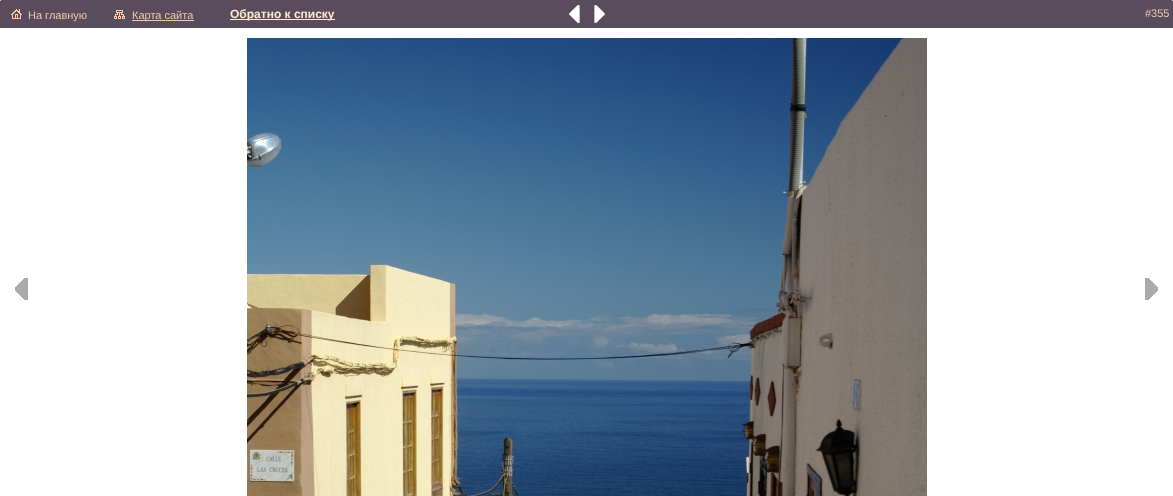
(async () => {
const canvas = document.querySelector("canvas")
canvas.width = 1173
canvas.height = 496
const c = canvas.getContext("2d")
c.miterLimit = 4
c.fontKerning = "normal"
function T(s,x,y){c.fillText(s,x,y)}
function R(x,y,w,h){c.fillRect(x,y,w,h)}
async function I(src,x,y,w,h){const img=new Image();img.src=src;await img.decode();c.drawImage(img,x,y,w,h)}
c.fillStyle="#fff"
R(0,0,1173,496)
c.fillStyle="#594c5c"
R(0,0,1173,28)
c.fillStyle="#dbdbdb"
R(0,0,1,1)
R(1172,0,1,1)
await I("1.png",247,38,680,458)
await I("2.png",11,9,11,10)
c.font="11px Liberation Sans"
c.fillStyle="#eec9ae"
T("На главную",28,19)
await I("3.png",114,10,11,9)
R(132,20,62,1)
T("Карта сайта",132,19)
c.fillStyle="#ffe9ce"
R(230,19,105,1)
c.font="bold 12px Liberation Sans"
T("Обратно к списку",230,18)
await I("4.png",569,5,11,18)
await I("5.png",594,5,11,18)
c.font="11px Liberation Sans"
c.fillStyle="#eec9ae"
T("#355",1145,17)
await I("6.png",15,278,13,22)
await I("7.png",1145,278,13,22)
})()
